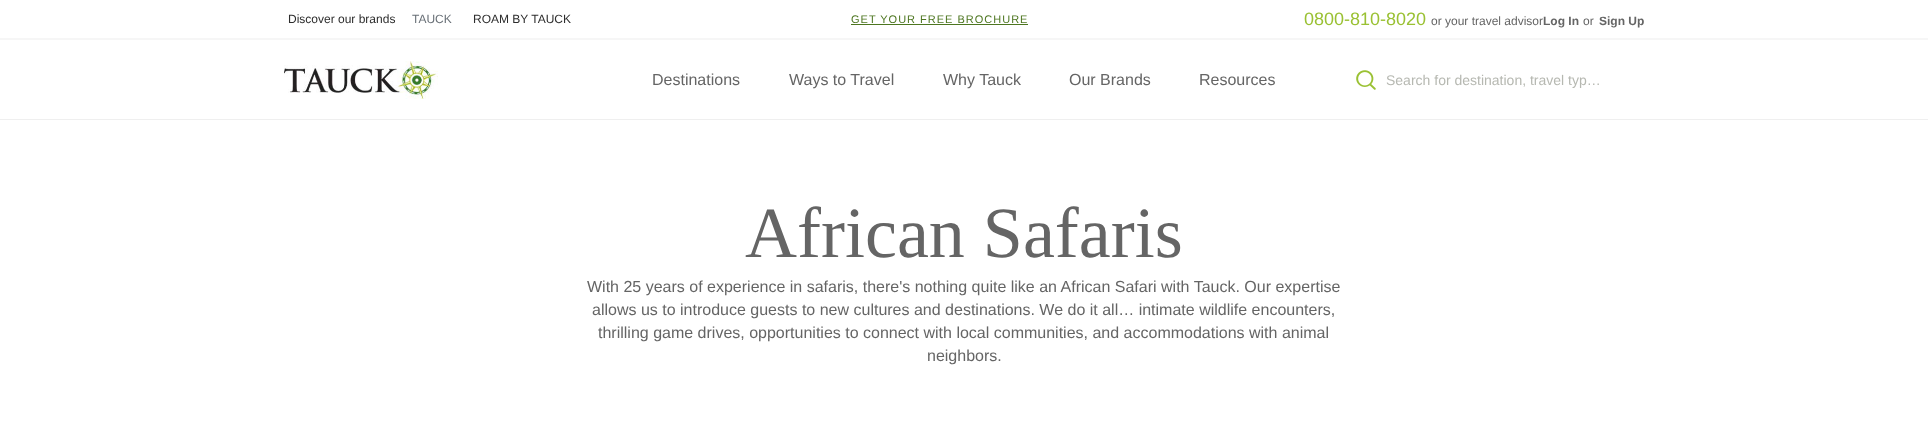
(async () => {
const canvas = document.querySelector("canvas")
canvas.width = 1928
canvas.height = 422
const c = canvas.getContext("2d")
c.miterLimit = 4
c.fontKerning = "normal"
function T(s,x,y){c.fillText(s,x,y)}
function R(x,y,w,h){c.fillRect(x,y,w,h)}
async function I(src,x,y,w,h){const img=new Image();img.src=src;await img.decode();c.drawImage(img,x,y,w,h)}
c.fillStyle="#fff"
R(0,0,1928,422)
c.fillStyle="#f6f6f6"
R(0,38,1928,2)
c.font="12px Liberation Sans"
c.fillStyle="#2d2d2d"
T("Discover our brands",288,23)
c.fillStyle="#697077"
T("TAUCK",412,23)
c.fillStyle="#2d2d2d"
T("ROAM BY TAUCK",473,23)
c.letterSpacing="1px"
c.font="11px Liberation Sans"
c.fillStyle="#4d7620"
T("GET YOUR FREE BROCHURE",851,23)
R(851,24,177,1)
c.letterSpacing="0px"
c.font="18px Liberation Sans"
c.fillStyle="#9ac133"
T("0800-810-8020",1304,25)
c.font="12px Liberation Sans"
c.fillStyle="#656565"
T("or your travel advisor",1431,25)
c.font="bold 12px Liberation Sans"
T("Log In",1543,25)
c.font="12px Liberation Sans"
T("or",1583,25)
c.font="bold 12px Liberation Sans"
T("Sign Up",1599,25)
c.fillStyle="#efefef"
R(0,119,1928,1)
await I("1.png",284,61,154,38)
c.font="16px Liberation Sans"
c.fillStyle="#656565"
T("Destinations",652,85)
T("Ways to Travel",789,85)
T("Why Tauck",943,85)
T("Our Brands",1069,85)
T("Resources",1199,85)
await I("2.png",1356,70,20,20)
c.font="14px Liberation Sans"
c.fillStyle="#b6b8b1"
T("Search for destination, travel typ…",1386,85)
c.font="72px Liberation Serif"
c.fillStyle="#656565"
T("African Safaris",745,257)
c.font="16px Liberation Sans"
T("With 25 years of experience in safaris, there's nothing quite like an African Safari with Tauck. Our expertise",587,292)
T("allows us to introduce guests to new cultures and destinations. We do it all… intimate wildlife encounters,",592,315)
T("thrilling game drives, opportunities to connect with local communities, and accommodations with animal",598,338)
T("neighbors.",927,361)
})()
